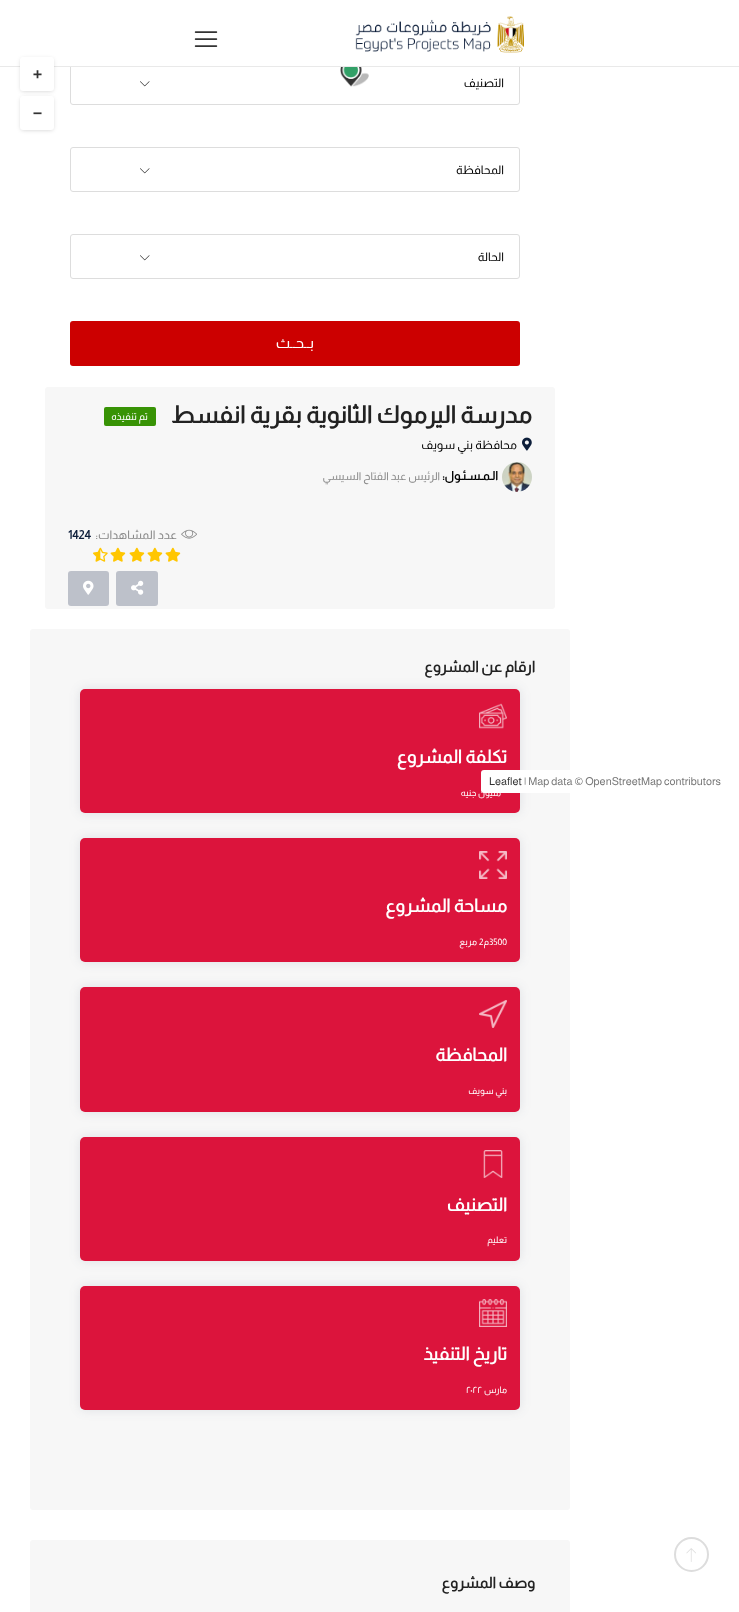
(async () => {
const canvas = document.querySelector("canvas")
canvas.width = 739
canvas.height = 1612
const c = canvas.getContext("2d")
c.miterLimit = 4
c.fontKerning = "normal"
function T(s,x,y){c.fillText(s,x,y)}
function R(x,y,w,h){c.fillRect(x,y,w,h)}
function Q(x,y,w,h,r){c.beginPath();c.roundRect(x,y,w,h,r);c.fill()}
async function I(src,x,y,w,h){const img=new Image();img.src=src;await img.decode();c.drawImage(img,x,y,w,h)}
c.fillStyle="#fff"
R(0,0,739,1612)
c.beginPath()
c.roundRect(70.5,60.5,449,44,2.5)
c.strokeStyle="#ddd"
c.stroke()
R(70,60,450,6)
c.fillStyle="#e9e9e9"
R(0,66,739,1)
await I("1.png",355,16,169,37)
await I("2.png",194,31,24,16)
await I("3.png",340,67,29,20)
c.fillStyle="#00000033"
c.filter="blur(2px)"
c.beginPath()
c.roundRect(21,59,32,32,2)
c.fill()
c.filter="none"
c.fillStyle="#fff"
Q(20,57,34,34,3)
c.font="bold 15px DejaVu Sans Mono"
c.fillStyle="#333"
T("+",33,79)
c.fillStyle="#00000033"
c.filter="blur(2px)"
c.beginPath()
c.roundRect(21,98,32,32,2)
c.fill()
c.filter="none"
c.fillStyle="#fff"
Q(20,96,34,34,3)
c.fillStyle="#333"
T("−",33,118)
c.fillStyle="#f7f7f7"
Q(30,629,540,881,3)
c.fillStyle="#263b5e1f"
c.filter="blur(5.5px)"
c.beginPath()
c.roundRect(80,689,440,124,5)
c.fill()
c.filter="none"
c.fillStyle="#dc143c"
Q(80,689,440,124,5)
c.fillStyle="#fff"
Q(481,770,248,23,3)
c.font="11px Almarai"
c.fillStyle="#777"
T("| Map data © OpenStreetMap contributors",524,785)
c.fillStyle="#333"
T("Leaflet",489,785)
c.beginPath()
c.arc(691.5,1554.5,16.5,0,7)
c.lineWidth=2
c.stroke()
await I("4.png",686,1548,10,14)
c.direction="rtl"
c.font="12px Almarai"
c.fillStyle="#000"
T("التصنيف",504,87)
await I("5.png",140,81,10,6)
c.beginPath()
c.roundRect(70.5,147.5,449,44,2.5)
c.lineWidth=1
c.stroke()
T("المحافظة",504,174)
await I("5.png",140,168,10,6)
c.beginPath()
c.roundRect(70.5,234.5,449,44,2.5)
c.stroke()
T("الحالة",504,261)
await I("5.png",140,255,10,6)
c.fillStyle="#c00"
Q(70,321,450,45,3)
c.font="15px Almarai"
c.fillStyle="#fff"
T("بــحــث",314,348)
c.fillStyle="#f7f7f7"
Q(45,387,510,222,3)
c.font="bold 24px Almarai"
c.fillStyle="#222"
T("مدرسة اليرموك الثانوية بقرية انفسط",532,423)
c.fillStyle="#389305"
Q(104,407,52,19,2)
c.font="10px Almarai"
c.fillStyle="#fff"
T("تم تنفيذه",148,420)
await I("6.png",522,437,10,14)
c.font="12px Almarai"
c.fillStyle="#000"
T("محافظة",517,449)
T("بني سويف",473,449)
await I("7.png",502,462,30,30)
c.font="bold 12px Almarai"
T("الـمـسـئـول:",498,480)
c.font="11px Almarai"
c.fillStyle="#888"
T("الرئيس عبد الفتاح السيسي",440,480)
await I("8.png",181,529,16,10)
c.font="12px Almarai"
T("عدد المشاهدات:",177,539)
c.direction="ltr"
c.font="bold 12px Almarai"
c.fillStyle="#0d1e3a"
T("1424",68,539)
await I("9.png",165,547,16,15)
await I("9.png",147,547,16,15)
await I("9.png",129,547,16,15)
await I("9.png",110,547,16,15)
await I("10.png",93,547,15,15)
c.fillStyle="#bdc1ca"
Q(116,571,42,35,3)
await I("11.png",131,580,13,15)
Q(68,571,41,35,3)
await I("12.png",83,580,11,15)
c.direction="rtl"
c.font="bold 15px Almarai"
c.fillStyle="#222"
T("ارقام عن المشروع",535,672)
await I("13.png",479,703,28,26)
c.font="bold 18px Almarai"
c.fillStyle="#fff"
T("تكلفة المشروع",507,763)
c.font="9px Almarai"
T("مليون جنيه",501,796)
c.fillStyle="#263b5e1f"
c.filter="blur(5.5px)"
c.beginPath()
c.roundRect(80,838,440,124,5)
c.fill()
c.filter="none"
c.fillStyle="#dc143c"
Q(80,838,440,124,5)
await I("14.png",479,851,28,28)
c.font="bold 18px Almarai"
c.fillStyle="#fff"
T("مساحة المشروع",507,912)
c.direction="ltr"
c.font="9px Almarai"
T("3500",489,945)
T("2",479,945)
c.direction="rtl"
T("م",489,945)
T("مربع",477,945)
c.fillStyle="#263b5e1f"
c.filter="blur(5.5px)"
c.beginPath()
c.roundRect(80,987,440,125,5)
c.fill()
c.filter="none"
c.fillStyle="#dc143c"
Q(80,987,440,125,5)
await I("15.png",479,1000,28,28)
c.font="bold 18px Almarai"
c.fillStyle="#fff"
T("المحافظة",507,1061)
c.font="9px Almarai"
T("بني سويف",507,1094)
c.fillStyle="#263b5e1f"
c.filter="blur(5.5px)"
c.beginPath()
c.roundRect(80,1137,440,124,5)
c.fill()
c.filter="none"
c.fillStyle="#dc143c"
Q(80,1137,440,124,5)
await I("16.png",483,1150,20,28)
c.font="bold 18px Almarai"
c.fillStyle="#fff"
T("التصنيف",507,1211)
c.font="9px Almarai"
T("تعليم",507,1243)
c.fillStyle="#263b5e1f"
c.filter="blur(5.5px)"
c.beginPath()
c.roundRect(80,1286,440,124,5)
c.fill()
c.filter="none"
c.fillStyle="#dc143c"
Q(80,1286,440,124,5)
await I("17.png",479,1299,28,28)
c.font="bold 18px Almarai"
c.fillStyle="#fff"
T("تاريخ التنفيذ",507,1360)
c.font="9px Almarai"
T("مارس",507,1393)
c.direction="ltr"
T("٢٠٢٢",466,1393)
c.fillStyle="#f7f7f7"
Q(30,1540,540,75,3)
c.direction="rtl"
c.font="bold 15px Almarai"
c.fillStyle="#222"
T("وصف المشروع",535,1588)
})()
